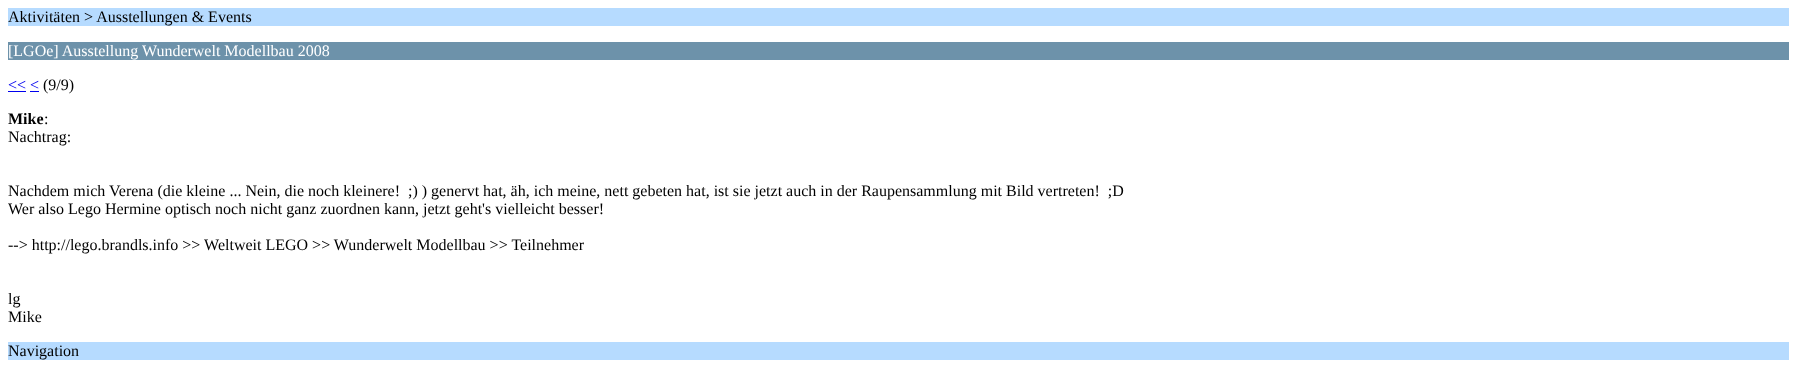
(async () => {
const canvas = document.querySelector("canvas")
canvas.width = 1797
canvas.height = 380
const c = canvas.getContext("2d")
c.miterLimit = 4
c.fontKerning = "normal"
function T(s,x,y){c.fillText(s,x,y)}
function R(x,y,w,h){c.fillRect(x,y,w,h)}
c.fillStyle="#fff"
R(0,0,1797,380)
c.fillStyle="#b6dbff"
R(8,8,1781,18)
c.font="16px Liberation Serif"
c.fillStyle="#000"
T("Aktivitäten > Ausstellungen & Events",8,22)
c.fillStyle="#6d92aa"
R(8,42,1781,18)
c.fillStyle="#fff"
T("[LGOe] Ausstellung Wunderwelt Modellbau 2008",8,56)
c.fillStyle="#00e"
T("<< <",8,90)
R(8,91,18,1)
c.fillStyle="#000"
T("(9/9)",43,90)
c.fillStyle="#00e"
R(30,91,9,1)
c.font="bold 16px Liberation Serif"
c.fillStyle="#000"
T("Mike",8,124)
c.font="16px Liberation Serif"
T(":",44,124)
T("Nachtrag:",8,142)
T("Nachdem mich Verena (die kleine ... Nein, die noch kleinere!  ;) ) genervt hat, äh, ich meine, nett gebeten hat, ist sie jetzt auch in der Raupensammlung mit Bild vertreten!  ;D",8,196)
T("Wer also Lego Hermine optisch noch nicht ganz zuordnen kann, jetzt geht's vielleicht besser!",8,214)
T("--> http://lego.brandls.info >> Weltweit LEGO >> Wunderwelt Modellbau >> Teilnehmer",8,250)
T("lg",8,304)
T("Mike",8,322)
c.fillStyle="#b6dbff"
R(8,342,1781,18)
c.fillStyle="#000"
T("Navigation",8,356)
})()
